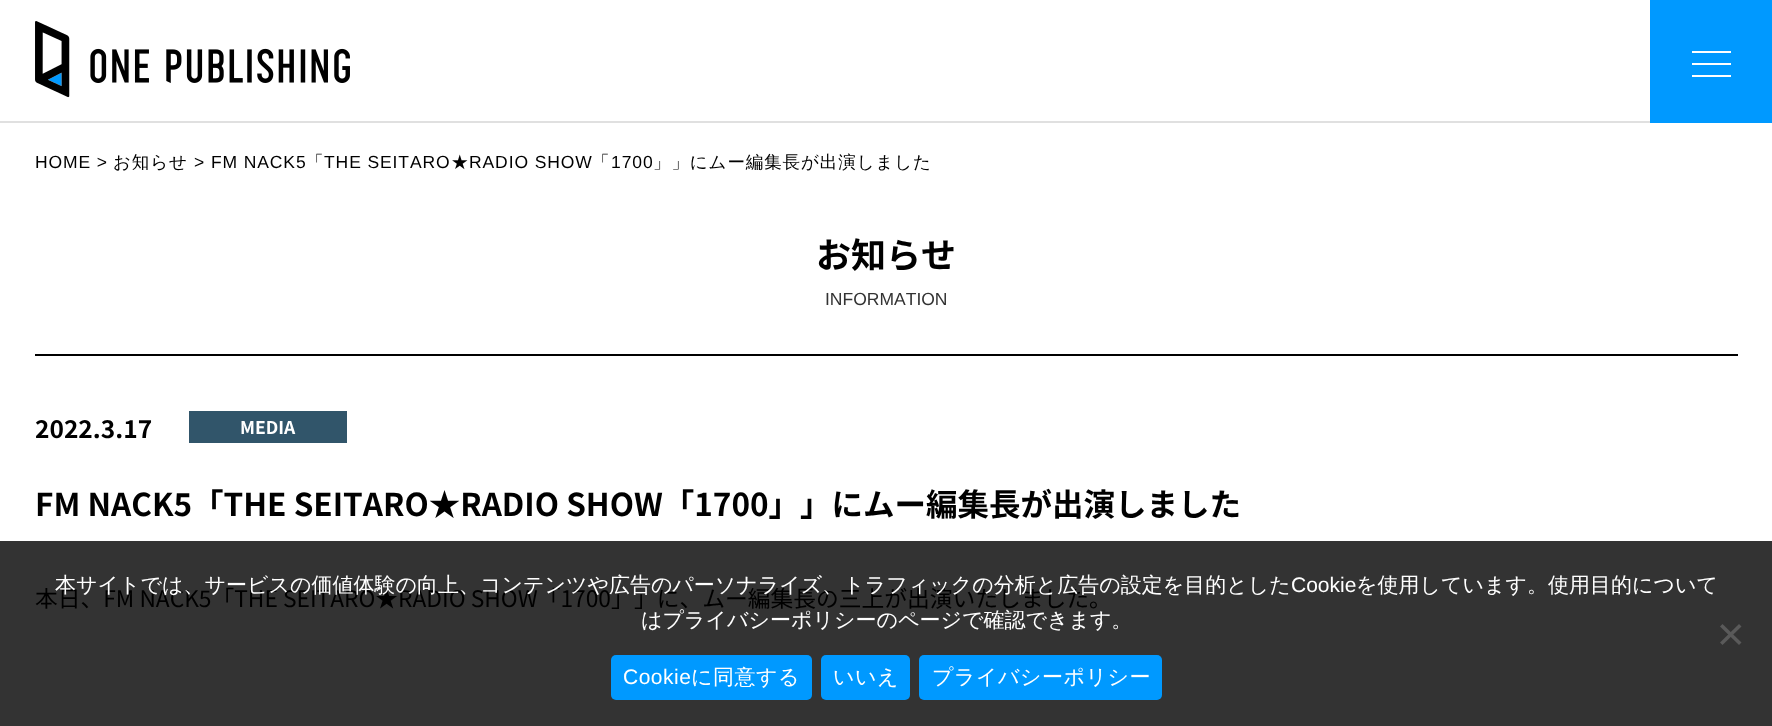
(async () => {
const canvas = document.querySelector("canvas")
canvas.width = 1772
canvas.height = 726
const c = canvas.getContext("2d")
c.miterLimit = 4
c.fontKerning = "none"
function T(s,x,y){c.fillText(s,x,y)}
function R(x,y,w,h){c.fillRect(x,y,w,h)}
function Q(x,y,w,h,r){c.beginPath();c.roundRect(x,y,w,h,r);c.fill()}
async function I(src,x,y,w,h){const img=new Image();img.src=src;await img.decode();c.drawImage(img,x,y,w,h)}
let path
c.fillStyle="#fff"
R(0,0,1772,726)
c.fillStyle="#333"
R(0,541,1772,185)
c.fillStyle="#e0e0e0"
R(0,121,1650,2)
await I("1.png",35,21,315,77)
c.fillStyle="#09f"
R(1650,0,122,123)
c.fillStyle="#fff"
R(1692,75,39,2)
R(1692,63,39,2)
R(1692,51,39,2)
c.letterSpacing="0.9px"
c.font="17.5px Liberation Sans"
c.fillStyle="#000"
T("HOME >",35,168)
c.font="500 17.5px WenQuanYi Zen Hei"
T("お知らせ",113,168)
c.font="17.5px Liberation Sans"
T("> FM NACK5",194,168)
c.font="500 17.5px WenQuanYi Zen Hei"
T("「",306,168)
c.font="17.5px Liberation Sans"
T("THE SEITARO",324,168)
c.font="500 17.5px WenQuanYi Zen Hei"
T("★",451,168)
c.font="17.5px Liberation Sans"
T("RADIO SHOW",469,168)
c.font="500 17.5px WenQuanYi Zen Hei"
T("「",592,168)
c.font="17.5px Liberation Sans"
T("1700",611,168)
c.font="500 17.5px WenQuanYi Zen Hei"
T("」」にムー編集長が出演しました",653,168)
c.letterSpacing="0px"
c.font="bold 35px Noto Sans JP"
T("お知らせ",816,268)
c.font="17.5px Liberation Sans"
c.fillStyle="#333"
T("INFORMATION",825,305)
c.fillStyle="#000"
R(35,354,1703,2)
c.font="bold 24.5px Noto Sans JP"
T("2022.3.17",35,438)
c.fillStyle="#31556a"
R(189,411,158,32)
c.font="bold 17.5px Noto Sans JP"
c.fillStyle="#fff"
T("MEDIA",240,434)
c.font="bold 31.5px Noto Sans JP"
c.fillStyle="#000"
T("FM NACK5「THE SEITARO★RADIO SHOW「1700」",35,516)
T("」にムー編集長が出演しました",800,516)
c.font="22.75px Noto Sans JP"
T("本日、FM NACK5「THE SEITARO★RADIO SHOW「1700」",35,607)
T("」に、ムー編集長の三上が出演いたしました。",634,607)
c.font="500 21px WenQuanYi Zen Hei"
c.fillStyle="#fff"
T("本サイトでは、サービスの価値体験の向上、コンテンツや広告のパーソナライズ、トラフィックの分析と広告の設定を目的とした",55,592)
c.font="21px Liberation Sans"
T("Cookie",1291,592)
c.font="500 21px WenQuanYi Zen Hei"
T("を使用しています。使用目的について",1356,592)
T("はプライバシーポリシーのページで確認できます。",641,627)
c.fillStyle="#5a5a5a"
path = new Path2D("M1739 624l2.5 2.5l-19 18.5l-2.5-2.5z")
c.fill(path)
path = new Path2D("M1720 626.5l2.5-2.5l19 18.5l-2.5 2.5z")
c.fill(path)
c.fillStyle="#09f"
Q(611,655,201,45,5)
c.letterSpacing="0.5px"
c.font="21px Liberation Sans"
c.fillStyle="#fff"
T("Cookie",623,684)
c.font="500 21px WenQuanYi Zen Hei"
T("に同意する",691,684)
c.fillStyle="#09f"
Q(821,655,89,45,5)
c.fillStyle="#fff"
T("いいえ",833,684)
c.fillStyle="#09f"
Q(919,655,243,45,5)
c.fillStyle="#fff"
T("プライバシーポリシー",932,684)
})()
